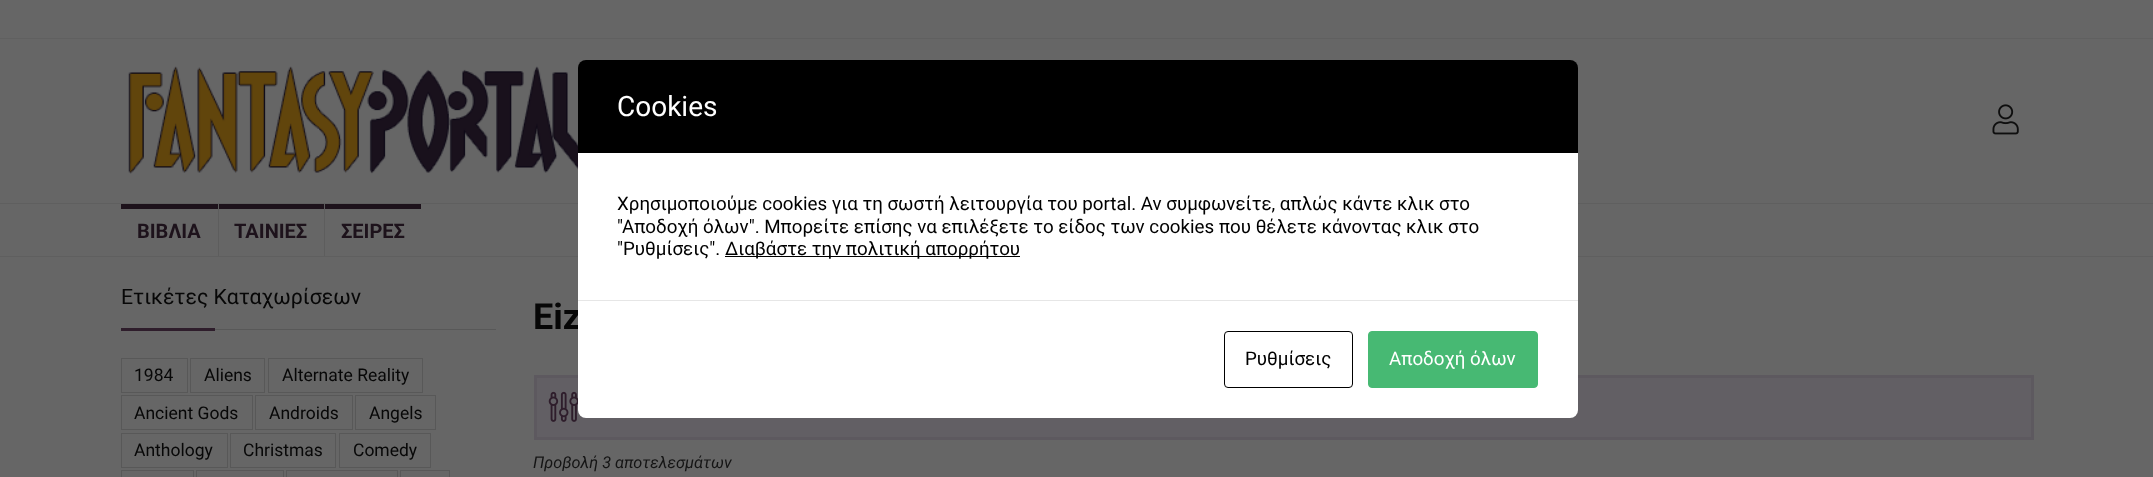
(async () => {
const canvas = document.querySelector("canvas")
canvas.width = 2153
canvas.height = 477
const c = canvas.getContext("2d")
c.miterLimit = 4
c.fontKerning = "normal"
function T(s,x,y){c.fillText(s,x,y)}
function R(x,y,w,h){c.fillRect(x,y,w,h)}
async function I(src,x,y,w,h){const img=new Image();img.src=src;await img.decode();c.drawImage(img,x,y,w,h)}
c.fillStyle="#666"
R(0,0,2153,477)
c.fillStyle="#606060"
R(0,38,2153,1)
await I("1.png",128,66,450,108)
await I("2.png",1992,104,27,31)
c.fillStyle="#5f5f5f"
R(0,203,2153,1)
R(0,256,2153,1)
c.fillStyle="#5d5d5d"
R(218,204,1,52)
c.fillStyle="#1d121b"
R(121,204,97,5)
c.font="bold 20px Roboto"
T("ΒΙΒΛΙΑ",137,238)
c.fillStyle="#5d5d5d"
R(324,204,1,52)
c.fillStyle="#1d121b"
R(219,204,105,5)
T("ΤΑΙΝΙΕΣ",234,238)
R(325,204,96,5)
T("ΣΕΙΡΕΣ",341,238)
c.fillStyle="#585858"
R(215,329,281,1)
c.font="21.25px Roboto"
c.fillStyle="#070707"
T("Ετικέτες Καταχωρίσεων",121,304)
c.fillStyle="#2e1d2b"
R(121,328,94,3)
c.strokeStyle="#585858"
c.strokeRect(121.5,358.5,66,34)
c.font="17.5px Roboto"
c.fillStyle="#070707"
T("1984",134,381)
c.strokeRect(190.5,358.5,74,34)
T("Aliens",204,381)
c.strokeRect(268.5,358.5,154,34)
T("Alternate Reality",282,381)
c.strokeRect(121.5,395.5,131,34)
T("Ancient Gods",134,419)
c.strokeRect(255.5,395.5,97,34)
T("Androids",269,419)
c.strokeRect(355.5,395.5,80,34)
T("Angels",369,419)
c.strokeRect(121.5,433.5,106,34)
T("Anthology",134,456)
c.strokeRect(230.5,433.5,105,34)
T("Christmas",243,456)
c.strokeRect(339.5,433.5,91,34)
T("Comedy",353,456)
c.strokeRect(121.5,470.5,72,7)
c.strokeRect(196.5,470.5,87,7)
c.strokeRect(286.5,470.5,111,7)
c.strokeRect(400.5,470.5,49,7)
c.font="bold 36px Roboto"
T("Eiz",533,329)
c.fillStyle="#625f64"
c.beginPath()
c.rect(535.5,376.5,1497,62)
c.fill()
c.strokeStyle="#5d595f"
c.lineWidth=3
c.stroke()
await I("3.png",548,391,30,31)
c.font="italic 16.25px Roboto"
c.fillStyle="#141414"
T("Προβολή 3 αποτελεσμάτων",533,468)
c.fillStyle="#000"
c.beginPath()
c.roundRect(578,60,1000,93,[8,8,0,0])
c.fill()
c.font="28px Roboto"
c.fillStyle="#fff"
T("Cookies",617,116)
R(578,153,1000,147)
c.font="18.75px Roboto"
c.fillStyle="#000"
T("Χρησιμοποιούμε cookies για τη σωστή λειτουργία του portal. Αν συμφωνείτε, απλώς κάντε κλικ στο",617,210)
T("\"Αποδοχή όλων\". Μπορείτε επίσης να επιλέξετε το είδος των cookies που θέλετε κάνοντας κλικ στο",617,233)
T("\"Ρυθμίσεις\".",617,255)
R(725,256,295,1)
T("Διαβάστε την πολιτική απορρήτου",725,255)
c.fillStyle="#fff"
c.beginPath()
c.roundRect(578,300,1000,118,[0,0,8,8])
c.fill()
c.fillStyle="#e6e6e6"
R(578,300,1000,1)
c.beginPath()
c.roundRect(1224.5,331.5,128,56,3.5)
c.strokeStyle="#000"
c.lineWidth=1
c.stroke()
c.fillStyle="#000"
T("Ρυθμίσεις",1245,365)
c.fillStyle="#47b973"
c.beginPath()
c.roundRect(1368.5,331.5,169,56,3.5)
c.fill()
c.strokeStyle="#47b973"
c.stroke()
c.fillStyle="#fff"
T("Αποδοχή όλων",1389,365)
})()
